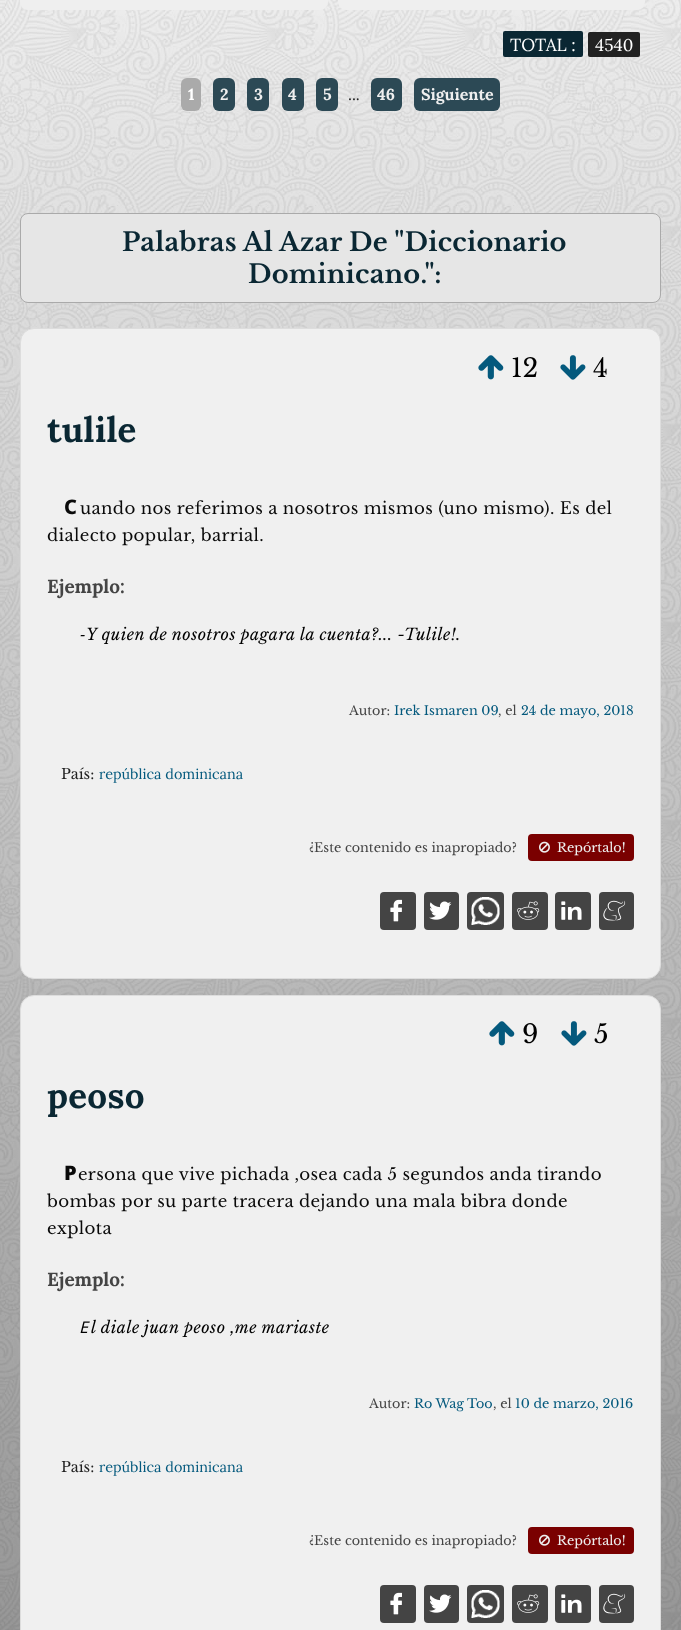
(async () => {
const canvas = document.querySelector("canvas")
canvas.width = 681
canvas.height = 1630
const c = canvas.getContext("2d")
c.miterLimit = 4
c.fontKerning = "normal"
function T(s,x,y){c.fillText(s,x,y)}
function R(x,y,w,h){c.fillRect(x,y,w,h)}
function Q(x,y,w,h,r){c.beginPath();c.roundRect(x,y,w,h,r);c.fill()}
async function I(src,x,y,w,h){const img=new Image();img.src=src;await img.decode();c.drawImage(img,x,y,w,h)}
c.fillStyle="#fff"
R(0,0,681,1630)
await I("1.png",0,0,681,1630)
c.fillStyle="#efefef"
Q(20,-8,308,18,8)
Q(338,-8,307,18,8)
c.fillStyle="#0a2733"
Q(503,31,80,26,2)
c.font="17.5px Lora"
c.fillStyle="#fff"
T("TOTAL :",510,51)
c.fillStyle="#222"
Q(588,32,52,25,2)
c.font="17px Lora"
c.fillStyle="#fff"
T("4540",595,51)
c.fillStyle="#aaa"
Q(181,78,20,33,6)
c.font="bold 16px Lora"
c.fillStyle="#fff"
T("1",188,100)
c.fillStyle="#2c4955"
Q(213,78,22,33,6)
c.fillStyle="#efefef"
T("2",220,100)
c.fillStyle="#2c4955"
Q(247,78,22,33,6)
c.fillStyle="#efefef"
T("3",254,100)
c.fillStyle="#2c4955"
Q(282,78,22,33,6)
c.fillStyle="#efefef"
T("4",288,100)
c.fillStyle="#2c4955"
Q(316,78,22,33,6)
c.fillStyle="#efefef"
T("5",323,100)
c.font="16px Lora"
c.fillStyle="#222"
T("...",348,100)
c.fillStyle="#2c4955"
Q(371,78,31,33,6)
c.font="bold 16px Lora"
c.fillStyle="#efefef"
T("46",377,100)
c.fillStyle="#2c4955"
Q(414,78,86,33,6)
c.fillStyle="#efefef"
T("Siguiente",421,100)
c.fillStyle="#e6e6e6"
c.beginPath()
c.roundRect(20.5,213.5,640,89,7.5)
c.fill()
c.strokeStyle="#aaa"
c.stroke()
c.letterSpacing="0.2px"
c.font="bold 25.6px Libre Baskerville"
c.fillStyle="#0a2733"
T("Palabras Al Azar De \"Diccionario",122,251)
T("Dominicano.\":",248,283)
c.fillStyle="#f0f0f0"
c.beginPath()
c.roundRect(20.5,328.5,640,650,13.5)
c.fill()
c.strokeStyle="#ddd"
c.stroke()
await I("2.png",478,355,26,25)
c.letterSpacing="0px"
c.font="25.6px Libre Baskerville"
c.fillStyle="#000"
T("12",511,377)
await I("3.png",560,355,26,25)
T("4",593,377)
c.letterSpacing="0.25px"
c.font="bold 35px Lora"
c.fillStyle="#0a2733"
T("tulile",47,442)
c.letterSpacing="0.33px"
c.font="800 20px Noto Sans"
c.fillStyle="#0a0a0a"
T("C",64,514)
c.font="16.65px Libre Baskerville"
T("uando nos referimos a nosotros mismos (uno mismo). Es del",80,514)
T("dialecto popular, barrial.",47,541)
c.letterSpacing="0px"
c.font="bold 19px Lora"
c.fillStyle="#444"
T("Ejemplo:",47,593)
c.letterSpacing="0.48px"
c.font="italic 16px Noto Sans"
c.fillStyle="#000"
T("-",79,640)
c.font="italic 16px Libre Baskerville"
T("Y quien de nosotros pagara la cuenta?... -Tulile!.",86,640)
c.letterSpacing="0px"
c.font="12.75px Libre Baskerville"
c.fillStyle="#444"
T("Autor:",349,715)
c.fillStyle="#04597d"
T("Irek Ismaren 09",394,715)
c.fillStyle="#444"
T(", el",498,715)
c.fillStyle="#04597d"
T("24 de mayo, 2018",521,715)
c.font="14.4px Libre Baskerville"
c.fillStyle="#222"
T("País:",61,779)
c.font="14.4px Lora"
c.fillStyle="#04597d"
T("república dominicana",99,779)
c.font="12.75px Libre Baskerville"
c.fillStyle="#444"
T("¿Este contenido es inapropiado?",309,852)
c.fillStyle="#7a0000"
Q(528,834,106,27,4)
await I("4.png",539,841,11,12)
c.fillStyle="#efefef"
T("Repórtalo!",557,852)
c.fillStyle="#444"
Q(380,892,36,38,4)
Q(424,892,35,38,4)
Q(467,892,37,38,4)
Q(512,892,36,38,4)
Q(555,892,36,38,4)
Q(599,892,35,38,4)
await I("5.png",390,899,12,23)
await I("6.png",429,901,23,19)
await I("7.png",471,897,29,28)
await I("8.png",517,901,23,19)
await I("9.png",561,901,21,19)
await I("10.png",603,900,23,21)
c.fillStyle="#f0f0f0"
c.beginPath()
c.roundRect(20.5,995.5,640,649,13.5)
c.fill()
c.stroke()
await I("2.png",489,1021,26,25)
c.font="25.6px Libre Baskerville"
c.fillStyle="#000"
T("9",522,1043)
await I("3.png",561,1021,26,25)
T("5",594,1043)
c.letterSpacing="0.25px"
c.font="bold 35px Lora"
c.fillStyle="#0a2733"
T("peoso",47,1108)
c.letterSpacing="0.33px"
c.font="900 20px Noto Sans"
c.fillStyle="#0a0a0a"
T("P",64,1180)
c.font="16.65px Libre Baskerville"
T("ersona que vive pichada ,osea cada 5 segundos anda tirando",78,1180)
T("bombas por su parte tracera dejando una mala bibra donde",47,1207)
T("explota",47,1234)
c.letterSpacing="0px"
c.font="bold 19px Lora"
c.fillStyle="#444"
T("Ejemplo:",47,1286)
c.letterSpacing="0.48px"
c.font="italic 16px Noto Sans"
c.fillStyle="#000"
T("E",79,1333)
c.font="italic 16px Libre Baskerville"
T("l diale juan",91,1333)
T("peoso ,me mariaste",184,1333)
c.letterSpacing="0px"
c.font="12.75px Libre Baskerville"
c.fillStyle="#444"
T("Autor:",369,1408)
c.fillStyle="#04597d"
T("Ro Wag Too",414,1408)
c.fillStyle="#444"
T(", el",493,1408)
c.fillStyle="#04597d"
T("10 de marzo, 2016",515,1408)
c.font="14.4px Libre Baskerville"
c.fillStyle="#222"
T("País:",61,1472)
c.font="14.4px Lora"
c.fillStyle="#04597d"
T("república dominicana",99,1472)
c.font="12.75px Libre Baskerville"
c.fillStyle="#444"
T("¿Este contenido es inapropiado?",309,1545)
c.fillStyle="#7a0000"
Q(528,1527,106,27,4)
await I("4.png",539,1534,11,12)
c.fillStyle="#efefef"
T("Repórtalo!",557,1545)
c.fillStyle="#444"
Q(380,1585,36,38,4)
Q(424,1585,35,38,4)
Q(467,1585,37,38,4)
Q(512,1585,36,38,4)
Q(555,1585,36,38,4)
Q(599,1585,35,38,4)
await I("5.png",390,1592,12,23)
await I("6.png",429,1594,23,19)
await I("11.png",471,1590,29,28)
await I("8.png",517,1594,23,19)
await I("9.png",561,1594,21,19)
await I("10.png",603,1593,23,21)
})()
